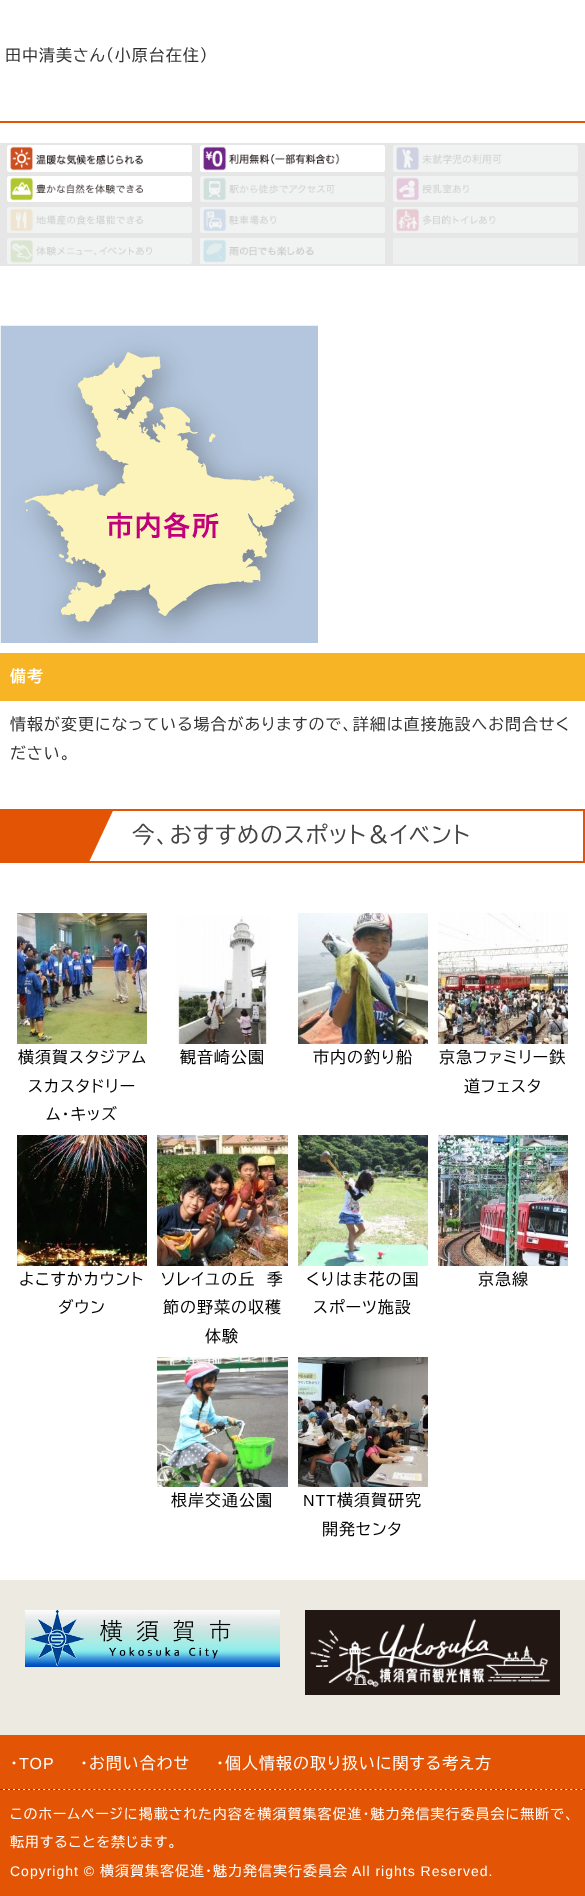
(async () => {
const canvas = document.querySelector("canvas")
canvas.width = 585
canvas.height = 1896
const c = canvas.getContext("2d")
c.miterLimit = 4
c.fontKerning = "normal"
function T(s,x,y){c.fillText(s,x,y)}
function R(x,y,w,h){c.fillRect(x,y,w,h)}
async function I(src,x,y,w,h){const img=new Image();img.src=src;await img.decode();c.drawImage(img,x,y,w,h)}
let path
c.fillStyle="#fff"
R(0,0,585,1896)
c.letterSpacing="1px"
c.font="16px BIZ UDPGothic"
c.fillStyle="#333"
T("田中清美さん（小原台在住）",5,61)
c.fillStyle="#e35504"
R(0,121,585,2)
c.fillStyle="#e6e6e6"
R(0,143,585,123)
await I("1.png",7,145,185,27)
await I("2.png",200,145,185,27)
await I("3.png",393,145,185,27)
await I("4.png",7,176,185,26)
await I("5.png",200,176,185,26)
await I("6.png",393,176,185,26)
await I("7.png",7,207,185,26)
await I("8.png",200,207,185,26)
await I("9.png",393,207,185,26)
await I("10.png",7,238,185,26)
await I("11.png",200,238,185,26)
c.fillStyle="#eeefef"
R(393,238,185,26)
await I("12.png",0,325,318,318)
c.fillStyle="#f7b525"
R(0,653,585,48)
c.font="bold 16px BIZ UDPGothic"
c.fillStyle="#fff"
T("備考",10,682)
c.font="16px BIZ UDPGothic"
c.fillStyle="#333"
T("情報が変更になっている場合がありますので、詳細は直接施設へお問合せく",10,730)
T("ださい。",10,759)
c.strokeStyle="#e35504"
c.lineWidth=2
c.strokeRect(1,810,583,52)
c.save()
c.beginPath()
c.rect(2,811,581,50)
c.clip()
c.fillStyle="#e35504"
path = new Path2D("M-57 700l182 85l-64 137l-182-85z")
c.fill(path)
c.restore()
c.font="22.4px BIZ UDPGothic"
c.fillStyle="#444"
T("今、おすすめのスポット＆イベント",132,843)
await I("13.png",17,913,130,131)
c.font="16px BIZ UDPGothic"
c.fillStyle="#000"
T("横須賀スタジアム",18,1063)
T("スカスタドリー",28,1092)
T("ム・キッズ",46,1120)
await I("14.png",175,916,95,128)
T("観音崎公園",180,1063)
await I("15.png",298,913,130,131)
T("市内の釣り船",313,1063)
await I("16.png",438,913,130,131)
T("京急ファミリー鉄",439,1063)
T("道フェスタ",464,1092)
await I("17.png",17,1135,130,131)
T("よこすかカウント",19,1285)
T("ダウン",58,1313)
await I("18.png",157,1135,131,131)
T("ソレイユの丘　季",161,1285)
T("節の野菜の収穫",163,1313)
T("体験",205,1342)
await I("19.png",298,1135,130,131)
T("くりはま花の国",306,1285)
T("スポーツ施設",313,1313)
await I("20.png",438,1135,130,131)
T("京急線",478,1285)
await I("21.png",157,1357,131,130)
T("根岸交通公園",171,1506)
await I("22.png",298,1357,130,130)
c.font="16px Liberation Sans"
T("NTT",303,1506)
c.font="16px BIZ UDPGothic"
T("横須賀研究",337,1506)
T("開発センタ",322,1535)
c.fillStyle="#edeae1"
R(0,1580,585,155)
await I("23.png",25,1610,255,57)
await I("24.png",305,1610,255,85)
c.fillStyle="#e35504"
R(0,1735,585,161)
c.fillStyle="#fff"
T("・",10,1769)
c.font="16px Liberation Sans"
T("TOP",19,1769)
c.font="16px BIZ UDPGothic"
T("・お問い合わせ",80,1769)
T("・個人情報の取り扱いに関する考え方",216,1769)
R(0,1789,585,1)
path = new Path2D("M0 1789.5h585")
c.strokeStyle="#005eb0"
c.lineWidth=1
c.setLineDash([3,2.02])
c.stroke(path)
c.font="14px BIZ UDPGothic"
T("このホームページに掲載された内容を横須賀集客促進・魅力発信実行委員会に無断で、",10,1819)
T("転用することを禁じます。",10,1847)
c.font="14px Liberation Sans"
T("Copyright ©",10,1876)
c.font="14px BIZ UDPGothic"
T("横須賀集客促進・魅力発信実行委員会",100,1876)
c.font="14px Liberation Sans"
T("All rights Reserved.",352,1876)
})()
